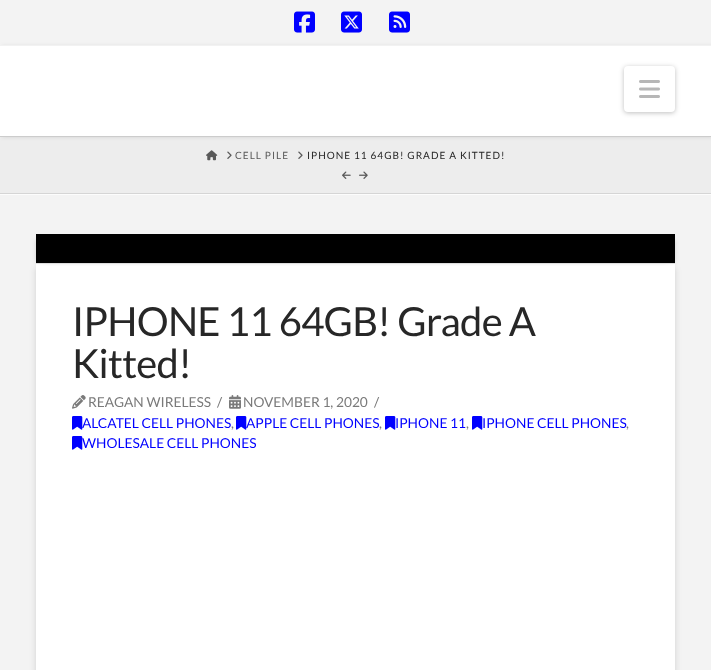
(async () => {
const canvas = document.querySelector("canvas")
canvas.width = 711
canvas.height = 670
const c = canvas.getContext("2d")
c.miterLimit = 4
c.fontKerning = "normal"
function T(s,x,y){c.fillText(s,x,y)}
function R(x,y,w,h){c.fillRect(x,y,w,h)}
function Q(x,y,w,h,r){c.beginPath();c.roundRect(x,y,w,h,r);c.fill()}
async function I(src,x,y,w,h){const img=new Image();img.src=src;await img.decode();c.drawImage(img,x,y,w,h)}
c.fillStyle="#f3f3f3"
R(0,0,711,670)
c.fillStyle="#ededed"
R(0,137,711,56)
c.fillStyle="#0000001a"
c.filter="blur(2px)"
c.beginPath()
c.rect(2,46,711,91)
c.fill()
c.filter="none"
c.fillStyle="#f2f2f2"
R(0,45,711,1)
await I("1.png",294,11,21,22)
await I("2.png",341,11,21,22)
await I("3.png",389,11,21,22)
c.fillStyle="#fff"
R(0,46,711,90)
c.fillStyle="#ccc"
R(0,136,711,1)
c.fillStyle="#00000040"
c.filter="blur(2.5px)"
c.beginPath()
c.roundRect(624,67,51,46,4)
c.fill()
c.filter="none"
c.fillStyle="#fff"
Q(624,66,51,46,4)
await I("4.png",639,80,21,18)
c.fillStyle="#fcfcfc"
R(0,194,711,1)
c.fillStyle="#d5d5d5"
R(0,193,711,1)
await I("5.png",206,150,12,11)
await I("6.png",227,151,5,8)
c.letterSpacing="1px"
c.font="10px Lato"
c.fillStyle="#595959"
T("CELL PILE",235,159)
await I("6.png",298,151,5,8)
c.fillStyle="#272727"
T("IPHONE 11 64GB! GRADE A KITTED!",307,159)
await I("7.png",342,171,9,8)
await I("8.png",359,171,9,8)
c.fillStyle="#00000021"
c.filter="blur(3px)"
c.beginPath()
c.roundRect(36,266,639,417,4)
c.fill()
c.filter="none"
c.fillStyle="#fff"
R(36,264,639,406)
c.fillStyle="#00000021"
c.filter="blur(2px)"
c.beginPath()
c.rect(36,240,631,22)
c.fill()
c.filter="none"
c.filter="blur(2px)"
c.beginPath()
c.rect(44,240,631,22)
c.fill()
c.filter="none"
c.fillStyle="#ddd"
R(36,263,639,1)
c.fillStyle="#000"
R(36,234,639,29)
c.letterSpacing="-0.75px"
c.font="40px Lato"
c.fillStyle="#272727"
T("IPHONE 11 64GB! Grade A",72,336)
T("Kitted!",72,378)
await I("9.png",72,395,14,14)
c.letterSpacing="0px"
c.font="13.75px Lato"
c.fillStyle="#7a7a7a"
T("REAGAN WIRELESS",88,407)
T("/",217,407)
await I("10.png",229,395,12,14)
T("NOVEMBER 1, 2020",243,407)
T("/",374,407)
await I("11.png",72,416,11,14)
c.fillStyle="#00f"
T("ALCATEL CELL PHONES",82,428)
c.fillStyle="#7a7a7a"
T(",",231,428)
await I("11.png",236,416,11,14)
c.fillStyle="#00f"
T("APPLE CELL PHONES",246,428)
c.fillStyle="#7a7a7a"
T(",",379,428)
await I("11.png",385,416,11,14)
c.fillStyle="#00f"
T("IPHONE 11",395,428)
c.fillStyle="#7a7a7a"
T(",",466,428)
await I("11.png",472,416,11,14)
c.fillStyle="#00f"
T("IPHONE CELL PHONES",482,428)
c.fillStyle="#7a7a7a"
T(",",626,428)
await I("11.png",72,436,11,14)
c.fillStyle="#00f"
T("WHOLESALE CELL PHONES",82,448)
})()
